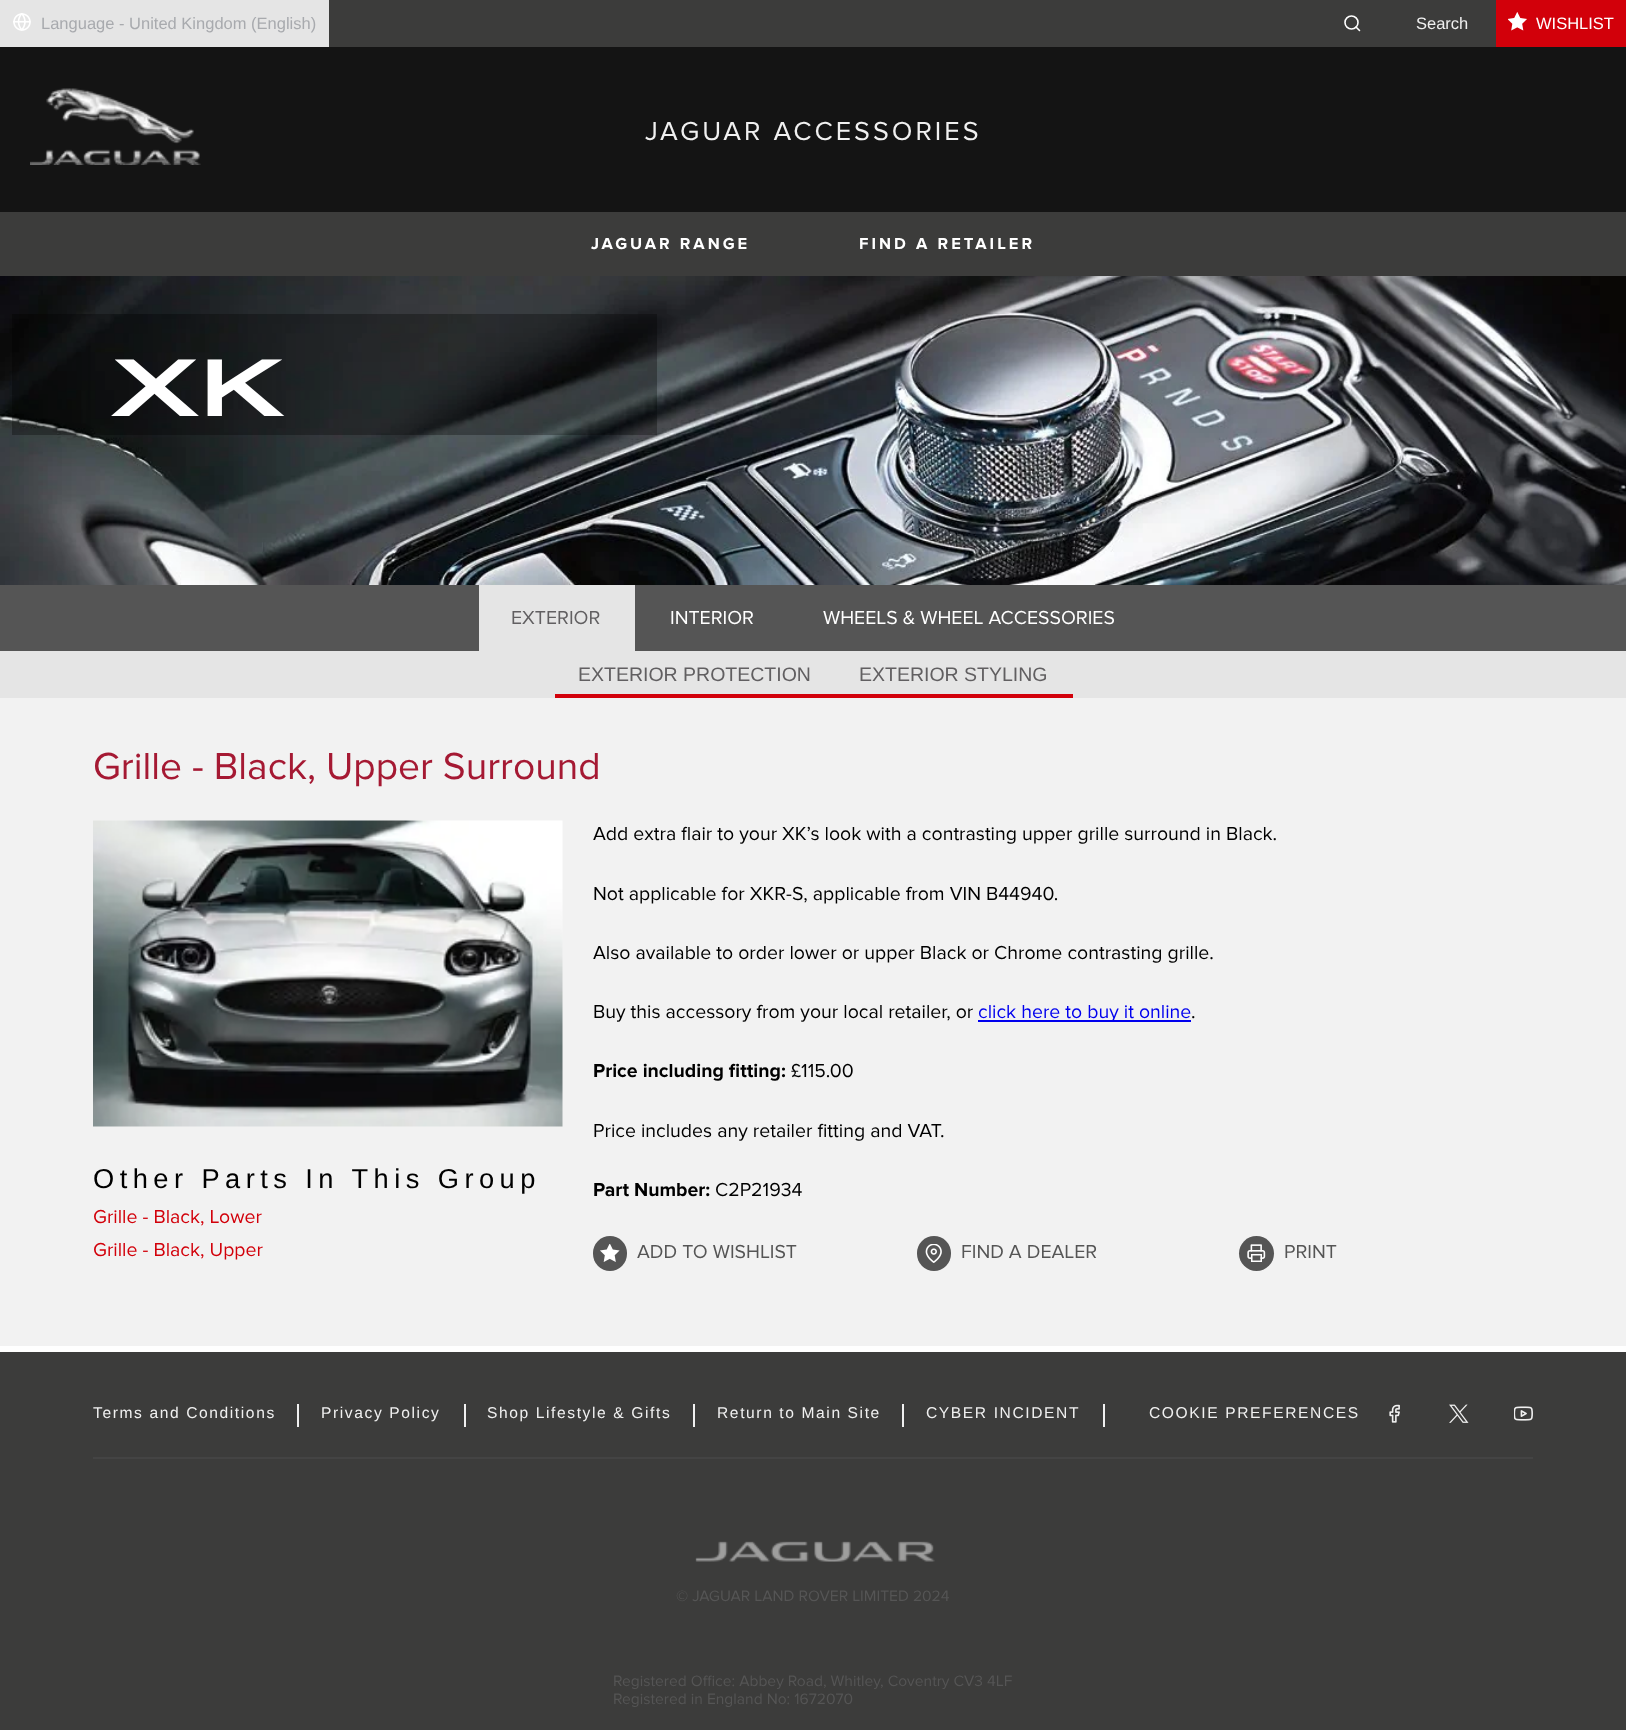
(async () => {
const canvas = document.querySelector("canvas")
canvas.width = 1626
canvas.height = 1730
const c = canvas.getContext("2d")
c.miterLimit = 4
c.fontKerning = "normal"
function T(s,x,y){c.fillText(s,x,y)}
function R(x,y,w,h){c.fillRect(x,y,w,h)}
function Q(x,y,w,h,r){c.beginPath();c.roundRect(x,y,w,h,r);c.fill()}
async function I(src,x,y,w,h){const img=new Image();img.src=src;await img.decode();c.drawImage(img,x,y,w,h)}
let gradient, path
c.fillStyle="#fff"
R(0,0,1626,1730)
c.fillStyle="#141414"
R(0,47,1626,165)
c.fillStyle="#3c3c3b"
R(329,0,1167,47)
c.fillStyle="#e5e5e5"
R(0,0,329,47)
await I("1.png",13,13,18,18)
c.font="16.5px Liberation Sans"
c.fillStyle="#a8aaae"
T("Language - United Kingdom (English)",41,29)
c.beginPath()
c.arc(1351.5,22.5,6.5,0,7)
c.strokeStyle="#fff"
c.lineWidth=1.6
c.stroke()
path = new Path2D("M1359.5 30.5l-3.5-3.5")
c.lineCap="round"
c.lineJoin="round"
c.stroke(path)
c.fillStyle="#f0f0f0"
T("Search",1416,29)
c.fillStyle="#d2000a"
R(1496,0,130,47)
await I("2.png",1508,12,19,19)
c.fillStyle="#fff"
T("WISHLIST",1536,29)
await I("3.png",30,88,171,77)
c.letterSpacing="3px"
c.font="27px Proxima Nova"
c.fillStyle="#f0f0f0"
T("JAGUAR ACCESSORIES",645,140)
c.fillStyle="#3c3c3b"
R(0,212,1626,64)
c.font="bold 16.5px Proxima Nova"
c.fillStyle="#fff"
T("JAGUAR RANGE",591,249)
T("FIND A RETAILER",859,249)
await I("4.png",0,276,1626,309)
c.fillStyle="#0000004d"
R(12,314,645,121)
c.letterSpacing="0px"
c.font="bold 78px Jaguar"
c.fillStyle="#fff"
T("XK",110,416)
c.fillStyle="#555"
R(0,585,1626,66)
c.fillStyle="#e5e5e5"
R(479,585,156,66)
c.font="19.5px Proxima Nova"
c.fillStyle="#615f61"
T("EXTERIOR",511,624)
c.fillStyle="#fff"
T("INTERIOR",670,624)
T("WHEELS & WHEEL ACCESSORIES",823,624)
c.fillStyle="#e5e5e5"
R(0,651,1626,47)
gradient = c.createLinearGradient(695,651,695,698)
gradient.addColorStop(0,"#e5e5e5")
gradient.addColorStop(.92,"#e5e5e5")
gradient.addColorStop(.92,"#d2000a")
gradient.addColorStop(1,"#d2000a")
c.fillStyle = gradient
R(555,694,281,4)
c.font="19.5px Liberation Sans"
c.fillStyle="#615f61"
T("EXTERIOR PROTECTION",578,681)
gradient = c.createLinearGradient(954,651,954,698)
gradient.addColorStop(0,"#e5e5e5")
gradient.addColorStop(.92,"#e5e5e5")
gradient.addColorStop(.92,"#d2000a")
gradient.addColorStop(1,"#d2000a")
c.fillStyle = gradient
R(836,694,237,4)
c.fillStyle="#615f61"
T("EXTERIOR STYLING",859,681)
c.fillStyle="#f2f2f2"
R(0,698,1626,648)
c.font="39px Proxima Nova"
c.fillStyle="#a51933"
T("Grille - Black, Upper Surround",93,779)
await I("5.png",93,820,470,307)
c.font="19.5px Proxima Nova"
c.fillStyle="#000"
T("Add extra flair to your XK’s look with a contrasting upper grille surround in Black.",593,840)
T("Not applicable for XKR-S, applicable from VIN B44940.",593,900)
T("Also available to order lower or upper Black or Chrome contrasting grille.",593,959)
T("Buy this accessory from your local retailer, or",593,1018)
c.fillStyle="#00e"
R(978,1020,213,2)
T("click here to buy it online",978,1018)
c.fillStyle="#000"
T(".",1191,1018)
c.font="bold 19.5px Proxima Nova"
T("Price including fitting:",593,1077)
c.font="19.5px Proxima Nova"
T("£115.00",791,1077)
T("Price includes any retailer fitting and VAT.",593,1137)
c.font="bold 19.5px Proxima Nova"
T("Part Number:",593,1196)
c.font="19.5px Proxima Nova"
T("C2P21934",715,1196)
c.fillStyle="#555"
Q(593,1236,34,35,17)
await I("6.png",600,1244,20,18)
T("ADD TO WISHLIST",637,1258)
Q(917,1236,34,35,17)
await I("7.png",925,1244,17,19)
T("FIND A DEALER",961,1258)
c.beginPath()
c.arc(1256.5,1253.5,17.5,0,7)
c.fill()
await I("8.png",1247,1244,19,18)
T("PRINT",1284,1258)
c.letterSpacing="5.45px"
c.font="27.25px Liberation Sans"
c.fillStyle="#000"
T("Other Parts In This Group",93,1188)
c.letterSpacing="0px"
c.font="19.5px Proxima Nova"
c.fillStyle="#d2000a"
T("Grille - Black, Lower",93,1223)
T("Grille - Black, Upper",93,1256)
c.fillStyle="#3c3c3b"
R(0,1352,1626,378)
c.letterSpacing="1.6px"
c.font="15.6px Liberation Sans"
c.fillStyle="#f0f0f0"
T("Terms and Conditions",93,1418)
R(297,1404,2,23)
T("Privacy Policy",321,1418)
R(464,1404,2,23)
T("Shop Lifestyle & Gifts",487,1418)
R(693,1404,2,23)
T("Return to Main Site",717,1418)
R(902,1404,2,23)
T("CYBER INCIDENT",926,1418)
R(1103,1404,2,23)
T("COOKIE PREFERENCES",1149,1418)
await I("9.png",1389,1404,11,19)
await I("10.png",1449,1404,20,19)
await I("11.png",1514,1406,19,15)
c.fillStyle="#444"
R(93,1457,1440,2)
await I("12.png",695,1541,240,21)
c.letterSpacing="0px"
c.font="15.6px Proxima Nova"
c.fillStyle="#555"
T("© JAGUAR LAND ROVER LIMITED 2024",676,1601)
T("Registered Office: Abbey Road, Whitley, Coventry CV3 4LF",613,1686)
T("Registered in England No: 1672070",613,1704)
})()
